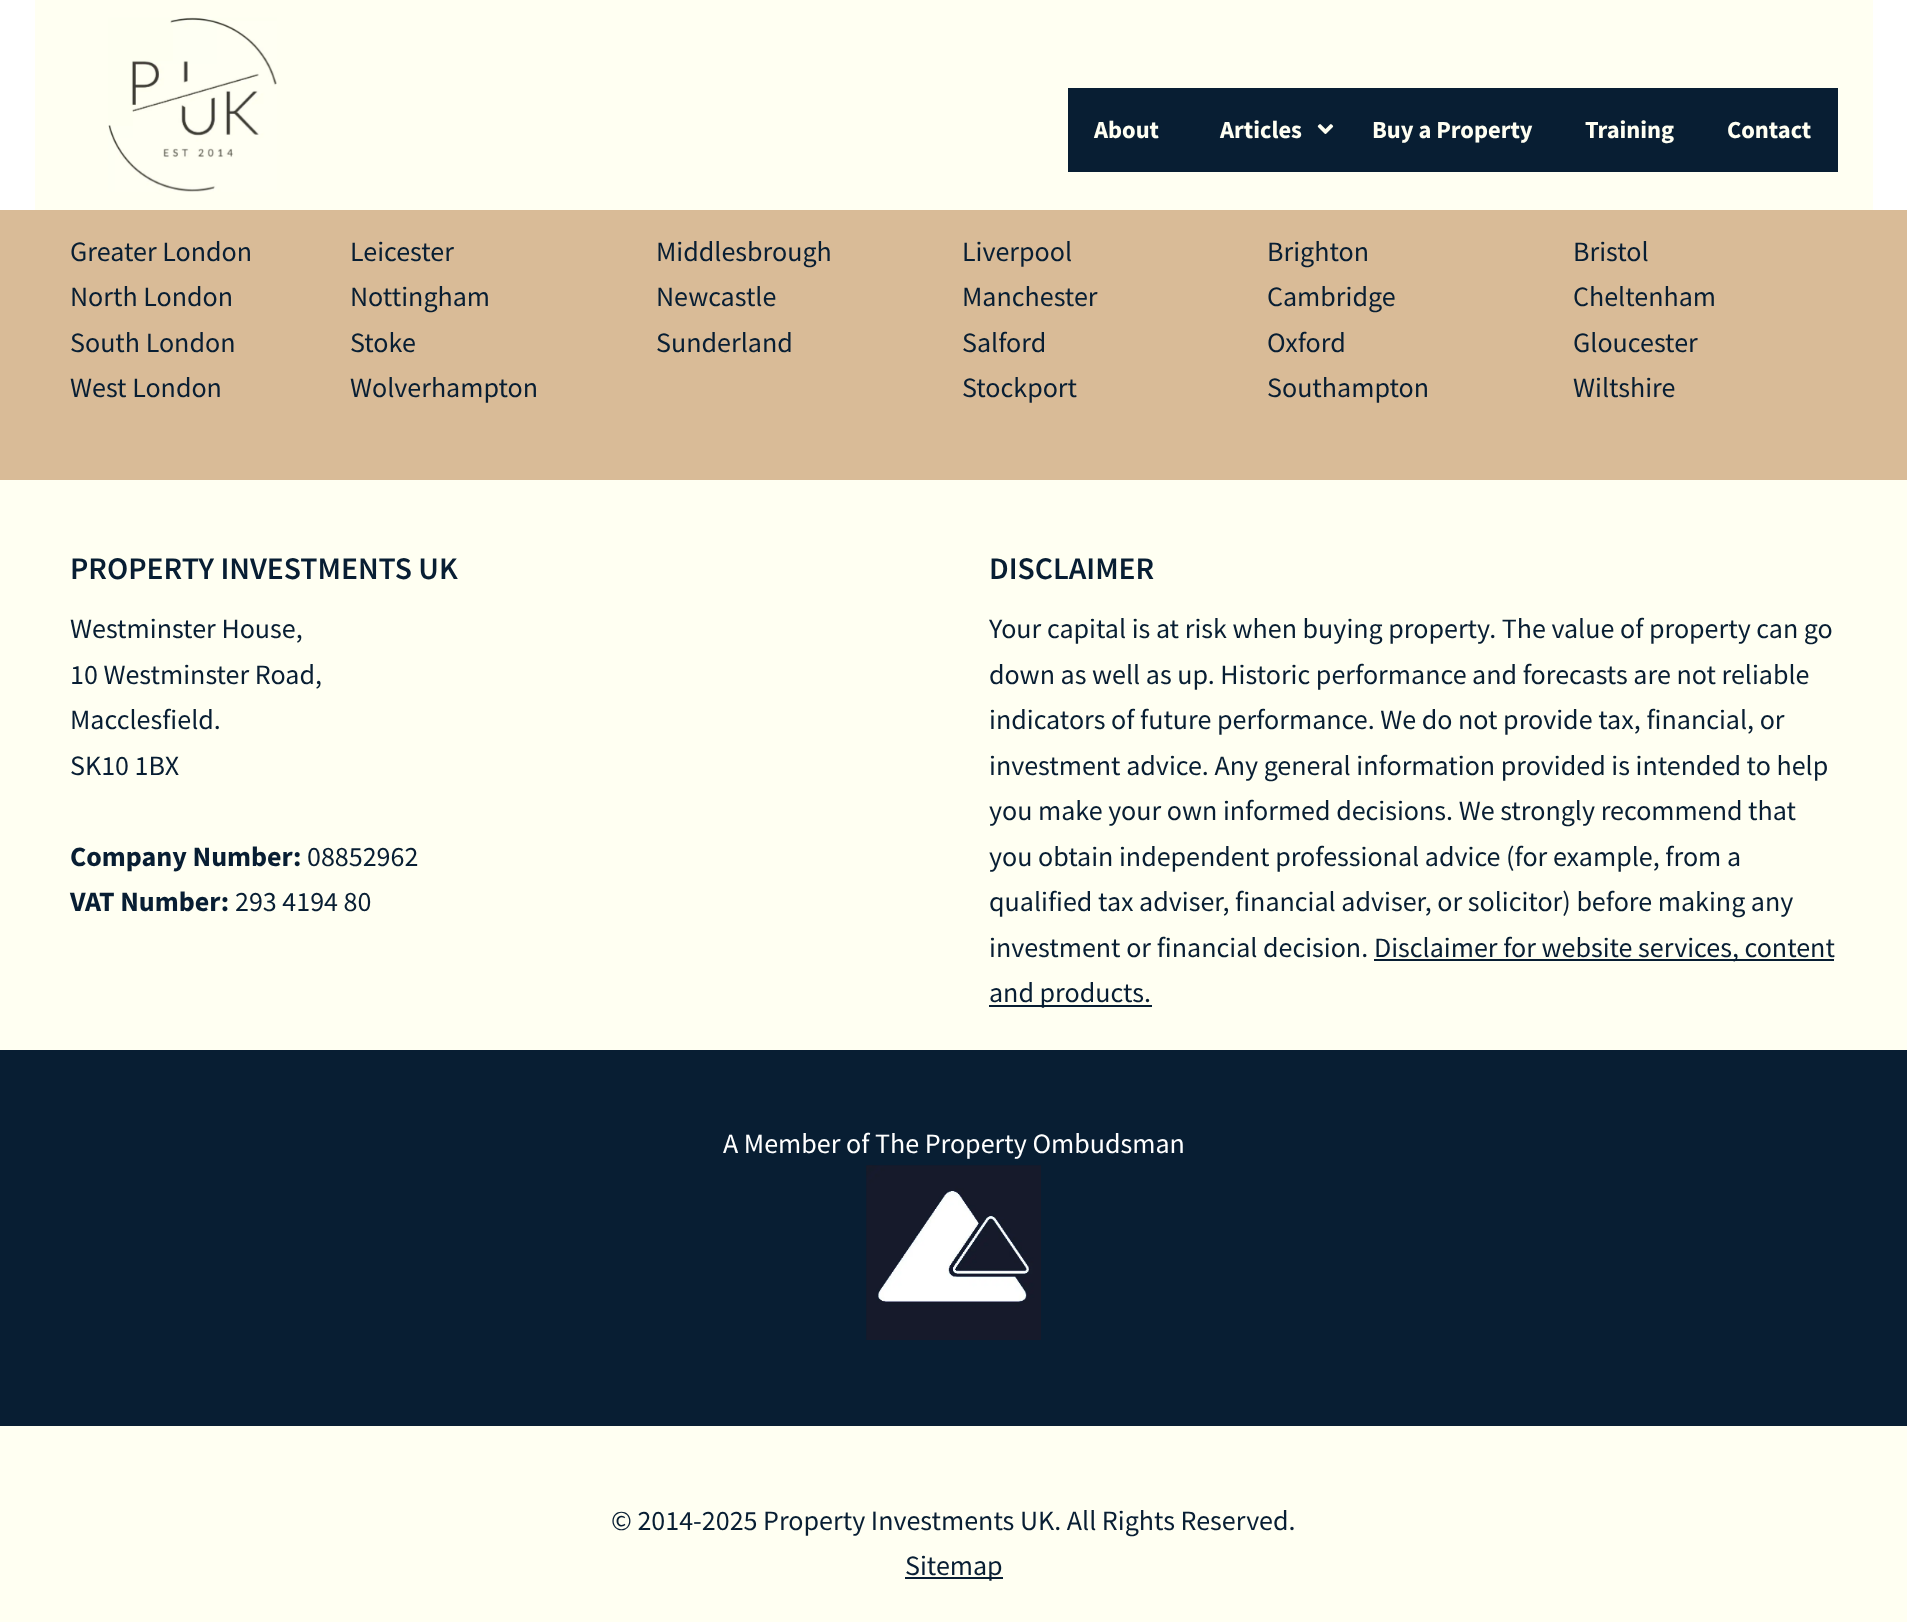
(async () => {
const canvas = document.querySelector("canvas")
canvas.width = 1907
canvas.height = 1622
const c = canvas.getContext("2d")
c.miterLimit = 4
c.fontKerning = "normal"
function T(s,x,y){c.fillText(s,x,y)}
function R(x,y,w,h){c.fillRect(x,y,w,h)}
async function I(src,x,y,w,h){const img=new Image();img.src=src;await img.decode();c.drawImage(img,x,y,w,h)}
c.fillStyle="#d9bb97"
R(0,0,1907,1622)
c.fillStyle="#fff"
R(0,0,1907,210)
c.fillStyle="#fffff2"
R(35,0,1838,210)
await I("1.png",108,17,169,175)
c.fillStyle="#081e33"
R(1068,88,770,84)
c.font="bold 24.5px Source Sans Pro"
c.fillStyle="#fffff2"
T("About",1094,138)
T("Articles",1220,138)
await I("2.png",1317,124,17,10)
T("Buy a Property",1372,138)
T("Training",1585,138)
T("Contact",1727,138)
c.font="28px Source Sans Pro"
c.fillStyle="#081e33"
T("Greater London",70,261)
T("North London",70,306)
T("South London",70,352)
T("West London",70,397)
T("Leicester",350,261)
T("Nottingham",350,306)
T("Stoke",350,352)
T("Wolverhampton",350,397)
T("Middlesbrough",656,261)
T("Newcastle",656,306)
T("Sunderland",656,352)
T("Liverpool",962,261)
T("Manchester",962,306)
T("Salford",962,352)
T("Stockport",962,397)
T("Brighton",1267,261)
T("Cambridge",1267,306)
T("Oxford",1267,352)
T("Southampton",1267,397)
T("Bristol",1573,261)
T("Cheltenham",1573,306)
T("Gloucester",1573,352)
T("Wiltshire",1573,397)
c.fillStyle="#fffff2"
R(0,480,1907,570)
c.font="600 31.5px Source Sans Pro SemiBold"
c.fillStyle="#081e33"
T("PROPERTY INVESTMENTS UK",70,579)
c.font="28px Source Sans Pro"
T("Westminster House,",70,638)
T("10 Westminster Road,",70,684)
T("Macclesfield.",70,729)
T("SK10 1BX",70,775)
c.font="bold 28px Source Sans Pro"
T("Company Number:",70,866)
c.font="28px Source Sans Pro"
T("08852962",307,866)
c.font="bold 28px Source Sans Pro"
T("VAT Number:",70,911)
c.font="28px Source Sans Pro"
T("293 4194 80",235,911)
c.font="600 31.5px Source Sans Pro SemiBold"
T("DISCLAIMER",989,579)
c.font="28px Source Sans Pro"
T("Your capital is at risk when buying property. The value of property can go",989,638)
T("down as well as up. Historic performance and forecasts are not reliable",989,684)
T("indicators of future performance. We do not provide tax, financial, or",989,729)
T("investment advice. Any general information provided is intended to help",989,775)
T("you make your own informed decisions. We strongly recommend that",989,820)
T("you obtain independent professional advice (for example, from a",989,866)
T("qualified tax adviser, financial adviser, or solicitor) before making any",989,911)
T("investment or financial decision.",989,957)
R(1374,959,460,2)
T("Disclaimer for website services, content",1374,957)
R(989,1005,163,2)
T("and products.",989,1002)
R(0,1050,1907,376)
c.fillStyle="#fff"
T("A Member of The Property Ombudsman",723,1153)
await I("3.png",866,1165,175,175)
c.fillStyle="#fffff2"
R(0,1426,1907,196)
c.fillStyle="#081e33"
T("© 2014-2025 Property Investments UK. All Rights Reserved.",611,1530)
R(905,1577,98,2)
T("Sitemap",905,1575)
})()
